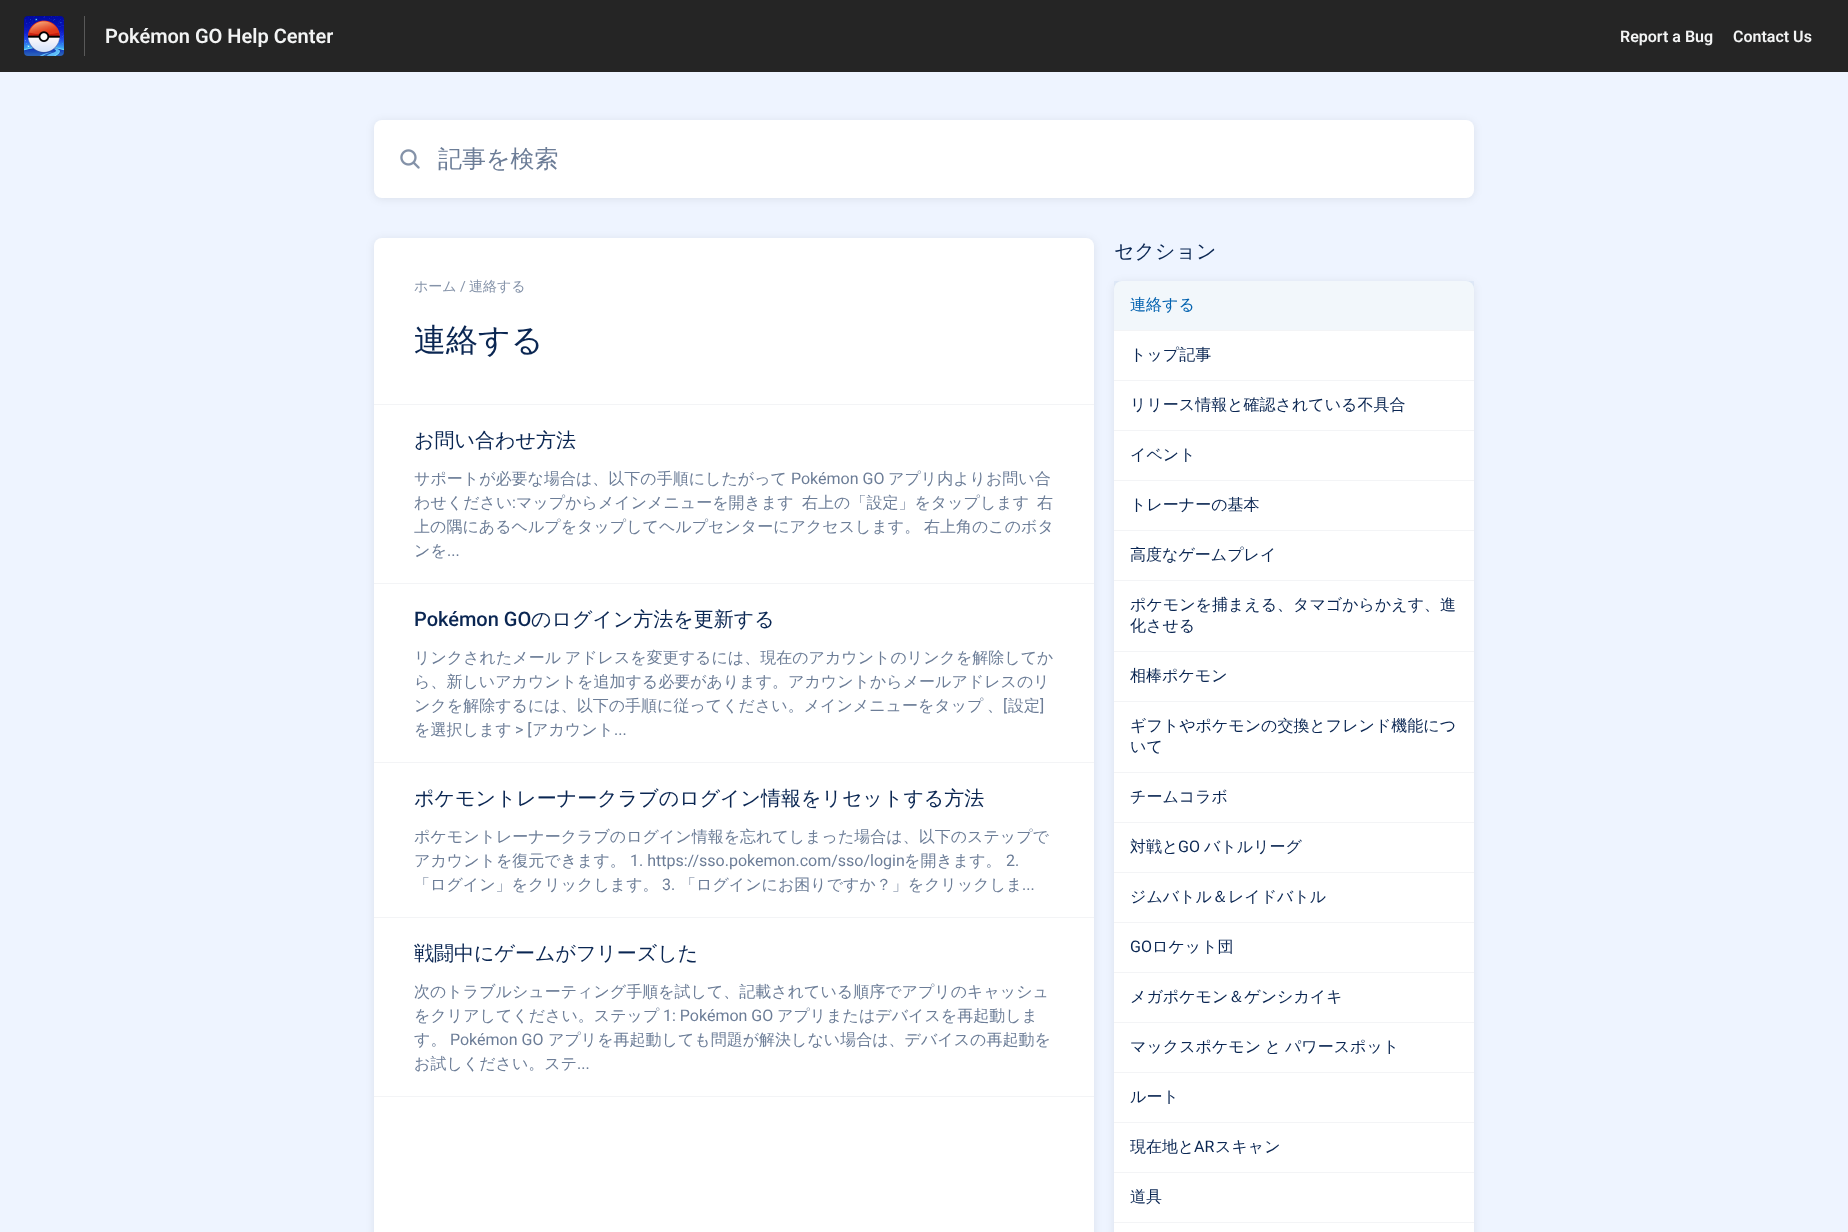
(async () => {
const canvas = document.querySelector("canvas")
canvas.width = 1848
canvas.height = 1232
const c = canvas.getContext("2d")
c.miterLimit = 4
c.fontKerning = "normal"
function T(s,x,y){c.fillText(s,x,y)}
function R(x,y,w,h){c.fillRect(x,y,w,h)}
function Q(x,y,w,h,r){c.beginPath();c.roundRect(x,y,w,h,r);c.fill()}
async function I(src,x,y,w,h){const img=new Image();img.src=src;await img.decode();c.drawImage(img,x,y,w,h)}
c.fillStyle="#eef4ff"
R(0,0,1848,1232)
c.fillStyle="#252525"
R(0,0,1848,72)
c.fillStyle="#595959"
R(84,16,1,40)
await I("1.png",24,16,40,40)
c.save()
c.beginPath()
c.rect(105,24,228,24)
c.clip()
c.font="600 20px Roboto"
c.fillStyle="#f3f4f4"
T("Pokémon GO Help Center",105,43)
c.restore()
c.font="600 16px Roboto"
c.fillStyle="#f3f4f4"
T("Report a Bug",1620,42)
T("Contact Us",1733,42)
c.fillStyle="#00000014"
c.filter="blur(4px)"
c.beginPath()
c.roundRect(374,121,1100,78,8)
c.fill()
c.filter="none"
c.fillStyle="#fff"
Q(374,120,1100,78,8)
await I("2.png",400,149,20,20)
c.font="500 24px WenQuanYi Zen Hei"
c.fillStyle="#6c7d97"
T("記事を検索",438,167)
c.fillStyle="#00000014"
c.filter="blur(4px)"
c.beginPath()
c.roundRect(374,239,720,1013,8)
c.fill()
c.filter="none"
c.fillStyle="#fff"
c.beginPath()
c.roundRect(374,238,720,994,[8,8,0,0])
c.fill()
c.fillStyle="#f3f4f6"
R(374,404,720,1)
c.font="500 14px WenQuanYi Zen Hei"
c.fillStyle="#8593a9"
T("ホーム",414,291)
c.font="14px Roboto"
T("/",460,291)
c.font="500 14px WenQuanYi Zen Hei"
T("連絡する",469,291)
c.font="500 32px WenQuanYi Zen Hei"
c.fillStyle="#0a2652"
T("連絡する",414,351)
c.fillStyle="#f3f4f6"
R(374,583,720,1)
c.font="500 20px WenQuanYi Zen Hei"
c.fillStyle="#0a2652"
T("お問い合わせ方法",414,447)
c.font="500 16px WenQuanYi Zen Hei"
c.fillStyle="#6c7d97"
T("サポートが必要な場合は、以下の手順にしたがって",414,484)
c.font="16px Roboto"
T("Pokémon GO",791,484)
c.font="500 16px WenQuanYi Zen Hei"
T("アプリ内よりお問い合",888,484)
T("わせください",414,508)
c.font="16px Roboto"
T(":",512,508)
c.font="500 16px WenQuanYi Zen Hei"
T("マップからメインメニューを開きます",516,508)
T("右上の「設定」をタップします",802,508)
T("右",1037,508)
c.wordSpacing="-1px"
T("上の隅にあるヘルプをタップしてヘルプセンターにアクセスします。 右上角のこのボタ",414,532)
c.wordSpacing="0px"
T("ンを",414,556)
c.font="16px Roboto"
T("...",447,556)
c.fillStyle="#f3f4f6"
R(374,762,720,1)
c.font="500 20px Roboto"
c.fillStyle="#0a2652"
T("Pokémon GO",414,626)
c.font="500 20px WenQuanYi Zen Hei"
T("のログイン方法を更新する",531,626)
c.wordSpacing="-1px"
c.font="500 16px WenQuanYi Zen Hei"
c.fillStyle="#6c7d97"
T("リンクされたメール アドレスを変更するには、現在のアカウントのリンクを解除してか",414,663)
c.wordSpacing="0px"
T("ら、新しいアカウントを追加する必要があります。アカウントからメールアドレスのリ",414,687)
T("ンクを解除するには、以下の手順に従ってください。メインメニューをタップ",414,711)
T("、",987,711)
c.font="16px Roboto"
T("[",1003,711)
c.font="500 16px WenQuanYi Zen Hei"
T("設定",1008,711)
c.font="16px Roboto"
T("]",1040,711)
c.font="500 16px WenQuanYi Zen Hei"
T("を選択します",414,735)
c.font="16px Roboto"
T("> [",515,735)
c.font="500 16px WenQuanYi Zen Hei"
T("アカウント",532,735)
c.font="16px Roboto"
T("...",614,735)
c.fillStyle="#f3f4f6"
R(374,917,720,1)
c.font="500 20px WenQuanYi Zen Hei"
c.fillStyle="#0a2652"
T("ポケモントレーナークラブのログイン情報をリセットする方法",414,805)
c.font="500 16px WenQuanYi Zen Hei"
c.fillStyle="#6c7d97"
T("ポケモントレーナークラブのログイン情報を忘れてしまった場合は、以下のステップで",414,842)
T("アカウントを復元できます。",414,866)
c.font="16px Roboto"
T("1. https://sso.pokemon.com/sso/login",630,866)
c.font="500 16px WenQuanYi Zen Hei"
T("を開きます。",904,866)
c.font="16px Roboto"
T("2.",1006,866)
c.font="500 16px WenQuanYi Zen Hei"
T("「ログイン」をクリックします。",414,890)
c.font="16px Roboto"
T("3.",662,890)
c.font="500 16px WenQuanYi Zen Hei"
T("「ログインにお困りですか？」をクリックしま",680,890)
c.font="16px Roboto"
T("...",1022,890)
c.fillStyle="#f3f4f6"
R(374,1096,720,1)
c.font="500 20px WenQuanYi Zen Hei"
c.fillStyle="#0a2652"
T("戦闘中にゲームがフリーズした",414,960)
c.font="500 16px WenQuanYi Zen Hei"
c.fillStyle="#6c7d97"
T("次のトラブルシューティング手順を試して、記載されている順序でアプリのキャッシュ",414,997)
T("をクリアしてください。ステップ",414,1021)
c.font="16px Roboto"
T("1: Pokémon GO",663,1021)
c.font="500 16px WenQuanYi Zen Hei"
T("アプリまたはデバイスを再起動しま",777,1021)
T("す。",414,1045)
c.font="16px Roboto"
T("Pokémon GO",450,1045)
c.font="500 16px WenQuanYi Zen Hei"
T("アプリを再起動しても問題が解決しない場合は、デバイスの再起動を",548,1045)
T("お試しください。ステ",414,1069)
c.font="16px Roboto"
T("...",577,1069)
c.font="500 20px WenQuanYi Zen Hei"
c.fillStyle="#0a2652"
T("セクション",1114,258)
c.fillStyle="#00000014"
c.filter="blur(4px)"
c.beginPath()
c.roundRect(1114,282,360,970,8)
c.fill()
c.filter="none"
c.fillStyle="#fff"
c.beginPath()
c.roundRect(1114,281,360,951,[8,8,0,0])
c.fill()
c.fillStyle="#f3f4f6"
R(1114,330,360,1)
c.fillStyle="#0061af0d"
R(1114,281,360,49)
c.font="500 16px WenQuanYi Zen Hei"
c.fillStyle="#0061af"
T("連絡する",1130,310)
c.fillStyle="#f3f4f6"
R(1114,380,360,1)
c.fillStyle="#0a2652"
T("トップ記事",1130,360)
c.fillStyle="#f3f4f6"
R(1114,430,360,1)
c.fillStyle="#0a2652"
T("リリース情報と確認されている不具合",1130,410)
c.fillStyle="#f3f4f6"
R(1114,480,360,1)
c.fillStyle="#0a2652"
T("イベント",1130,460)
c.fillStyle="#f3f4f6"
R(1114,530,360,1)
c.fillStyle="#0a2652"
T("トレーナーの基本",1130,510)
c.fillStyle="#f3f4f6"
R(1114,580,360,1)
c.fillStyle="#0a2652"
T("高度なゲームプレイ",1130,560)
c.fillStyle="#f3f4f6"
R(1114,651,360,1)
c.fillStyle="#0a2652"
T("ポケモンを捕まえる、タマゴからかえす、進",1130,610)
T("化させる",1130,631)
c.fillStyle="#f3f4f6"
R(1114,701,360,1)
c.fillStyle="#0a2652"
T("相棒ポケモン",1130,681)
c.fillStyle="#f3f4f6"
R(1114,772,360,1)
c.fillStyle="#0a2652"
T("ギフトやポケモンの交換とフレンド機能につ",1130,731)
T("いて",1130,752)
c.fillStyle="#f3f4f6"
R(1114,822,360,1)
c.fillStyle="#0a2652"
T("チームコラボ",1130,802)
c.fillStyle="#f3f4f6"
R(1114,872,360,1)
c.fillStyle="#0a2652"
T("対戦と",1130,852)
c.font="16px Roboto"
T("GO",1178,852)
c.font="500 16px WenQuanYi Zen Hei"
T("バトルリーグ",1204,852)
c.fillStyle="#f3f4f6"
R(1114,922,360,1)
c.fillStyle="#0a2652"
T("ジムバトル＆レイドバトル",1130,902)
c.fillStyle="#f3f4f6"
R(1114,972,360,1)
c.font="16px Roboto"
c.fillStyle="#0a2652"
T("GO",1130,952)
c.font="500 16px WenQuanYi Zen Hei"
T("ロケット団",1152,952)
c.fillStyle="#f3f4f6"
R(1114,1022,360,1)
c.fillStyle="#0a2652"
T("メガポケモン＆ゲンシカイキ",1130,1002)
c.fillStyle="#f3f4f6"
R(1114,1072,360,1)
c.wordSpacing="-1px"
c.fillStyle="#0a2652"
T("マックスポケモン と パワースポット",1130,1052)
c.fillStyle="#f3f4f6"
R(1114,1122,360,1)
c.wordSpacing="0px"
c.fillStyle="#0a2652"
T("ルート",1130,1102)
c.fillStyle="#f3f4f6"
R(1114,1172,360,1)
c.fillStyle="#0a2652"
T("現在地と",1130,1152)
c.font="16px Roboto"
T("AR",1194,1152)
c.font="500 16px WenQuanYi Zen Hei"
T("スキャン",1215,1152)
c.fillStyle="#f3f4f6"
R(1114,1222,360,1)
c.fillStyle="#0a2652"
T("道具",1130,1202)
})()
